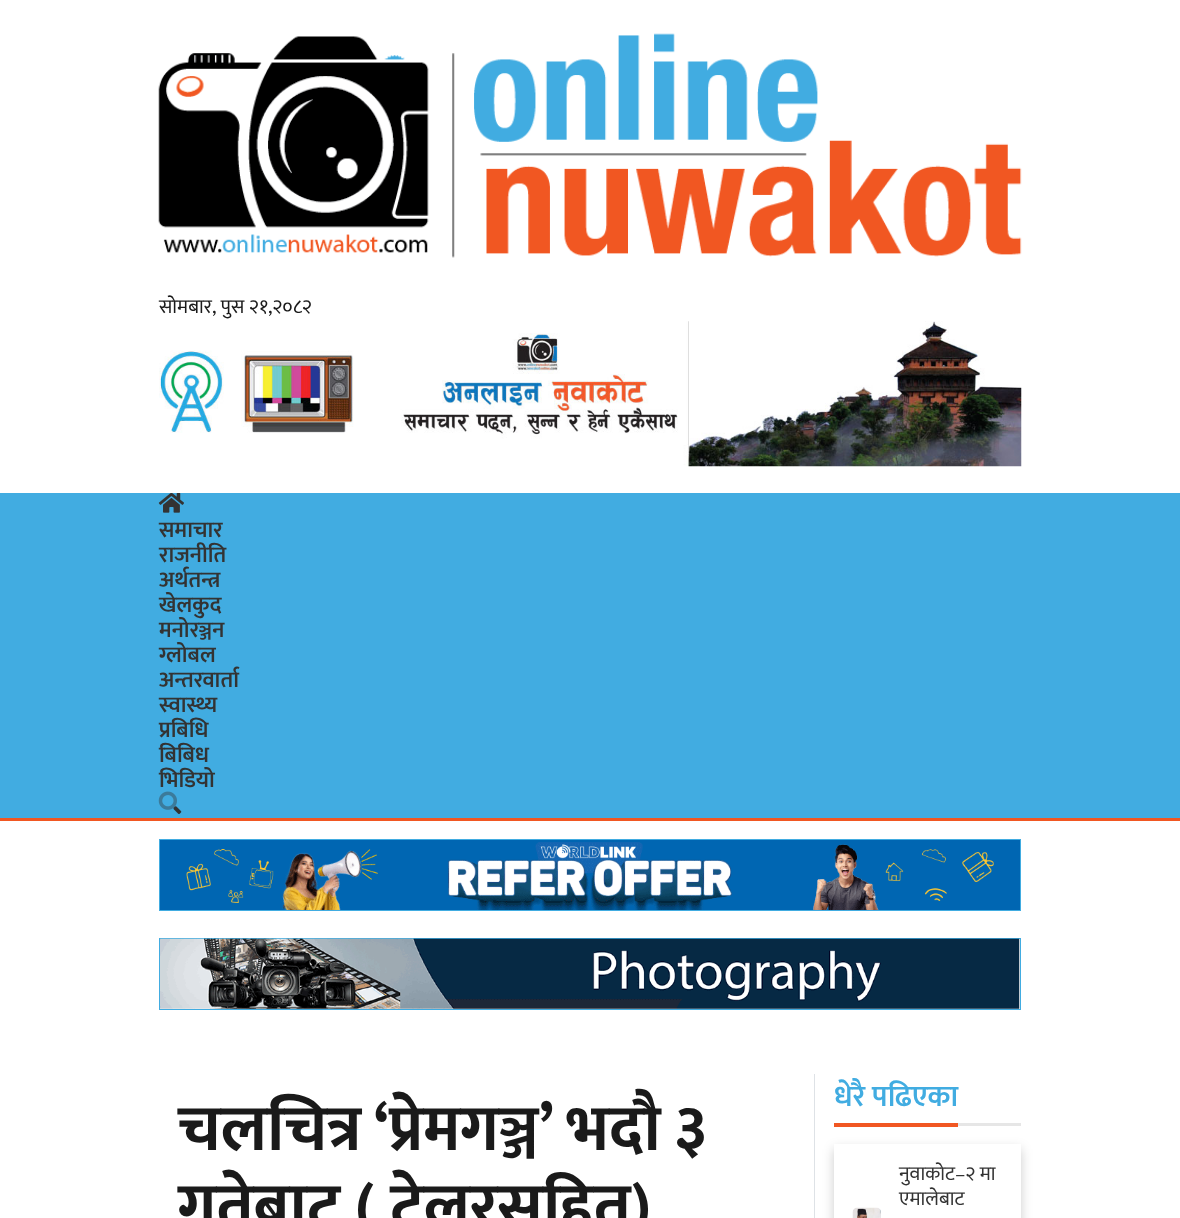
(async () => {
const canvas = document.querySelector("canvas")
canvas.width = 1180
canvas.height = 1218
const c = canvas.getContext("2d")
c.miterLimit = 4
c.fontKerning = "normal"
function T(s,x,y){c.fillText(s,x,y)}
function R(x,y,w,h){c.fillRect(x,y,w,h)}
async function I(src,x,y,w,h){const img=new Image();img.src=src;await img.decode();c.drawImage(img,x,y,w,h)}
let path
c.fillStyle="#fff"
R(0,0,1180,1218)
await I("1.png",158,33,864,225)
c.font="20px Mukta"
c.fillStyle="#1a1a1a"
T("सोमबार, पुस २१,२०८२",159,313)
await I("2.png",159,321,863,146)
c.fillStyle="#41ace1"
R(0,493,1180,325)
c.fillStyle="#f15722"
R(0,818,1180,3)
await I("3.png",158,493,26,20)
c.font="600 22.5px Mukta"
c.fillStyle="#333"
T("समाचार",159,537)
T("राजनीति",159,562)
T("अर्थतन्त्र",159,587)
T("खेलकुद",159,612)
T("मनोरञ्जन",159,637)
T("ग्लोबल",159,662)
T("अन्तरवार्ता",159,687)
T("स्वास्थ्य",159,712)
T("प्रबिधि",159,737)
T("बिबिध",159,762)
T("भिडियो",159,787)
await I("5.png",173,806,9,8)
await I("4.png",158,791,19,19)
c.strokeStyle="#41ace1"
c.strokeRect(159.5,839.5,861,71)
await I("6.png",160,840,860,70)
c.strokeRect(159.5,938.5,861,71)
await I("7.png",160,938,860,71)
c.fillStyle="#dee2e6"
R(814,1074,1,144)
c.wordSpacing="-2px"
c.font="bold 65px Mukta"
c.fillStyle="#1a1a1a"
T("चलचित्र ‘प्रेमगञ्ज’ भदौ ३",178,1150)
c.wordSpacing="0px"
T("गतेबाट ( ट्रेलरसहित)",178,1228)
c.fillStyle="#e6e6e6"
R(958,1123,63,3)
c.font="600 30px Mukta"
c.fillStyle="#41ace1"
T("धेरै पढिएका",834,1106)
c.fillStyle="#f15722"
R(834,1123,124,4)
c.save()
path = new Path2D("M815 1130h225v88h-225zm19 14h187v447h-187z")
c.clip(path,"evenodd")
c.fillStyle="#00000033"
c.filter="blur(6px)"
c.beginPath()
c.rect(834,1149,187,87)
c.fill()
c.filter="none"
c.restore()
c.font="20px Mukta"
c.fillStyle="#333"
T("नुवाकोट–२ मा",899,1180)
T("एमालेबाट",899,1205)
await I("8.png",852,1207,29,11)
})()
